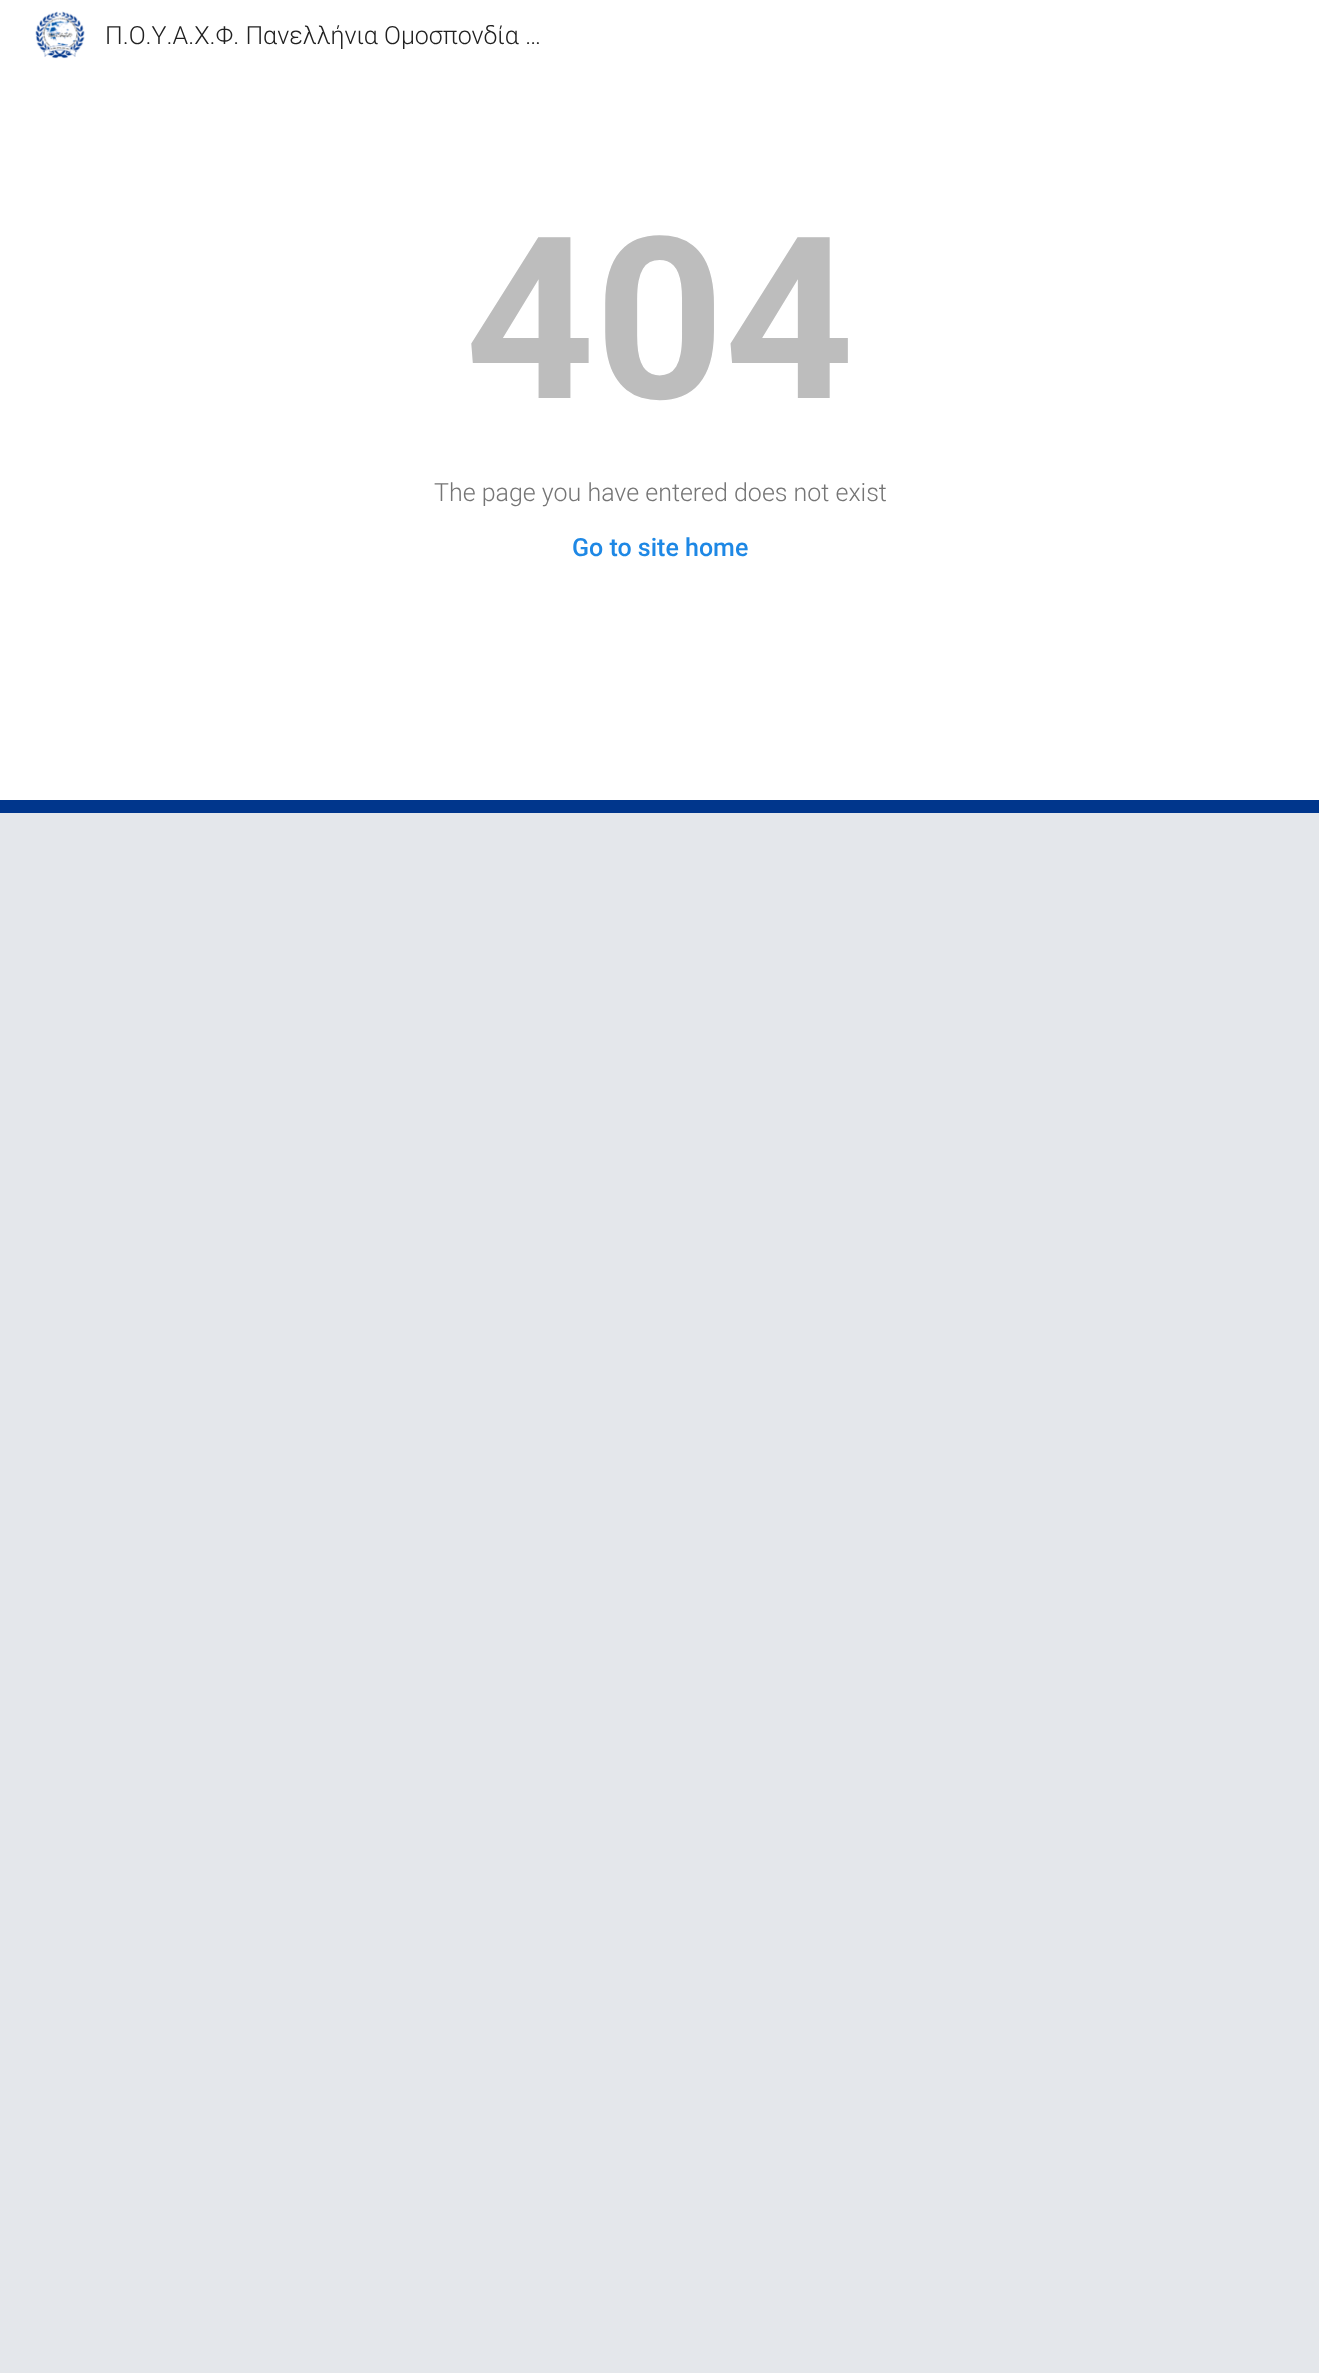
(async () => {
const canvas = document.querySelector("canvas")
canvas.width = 1319
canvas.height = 2373
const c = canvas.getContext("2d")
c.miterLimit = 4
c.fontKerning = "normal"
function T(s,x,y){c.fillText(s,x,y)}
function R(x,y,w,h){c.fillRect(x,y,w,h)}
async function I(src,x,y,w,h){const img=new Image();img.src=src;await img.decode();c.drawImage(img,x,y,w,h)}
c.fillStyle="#e4e7eb"
R(0,0,1319,2373)
c.fillStyle="#fff"
R(0,0,1319,800)
await I("1.png",35,11,50,48)
c.font="300 25px Roboto"
c.fillStyle="#212121"
T("Π.Ο.Υ.Α.Χ.Φ. Πανελλήνια Ομοσπονδία …",105,44)
c.fillStyle="#00368c"
R(0,800,1319,13)
c.font="bold 226px Roboto"
c.fillStyle="#bdbdbd"
T("404",465,398)
c.font="300 25px Roboto"
c.fillStyle="#757575"
T("The page you have entered does not exist",434,501)
c.font="500 25px Roboto"
c.fillStyle="#1e88e5"
T("Go to site home",572,556)
})()
